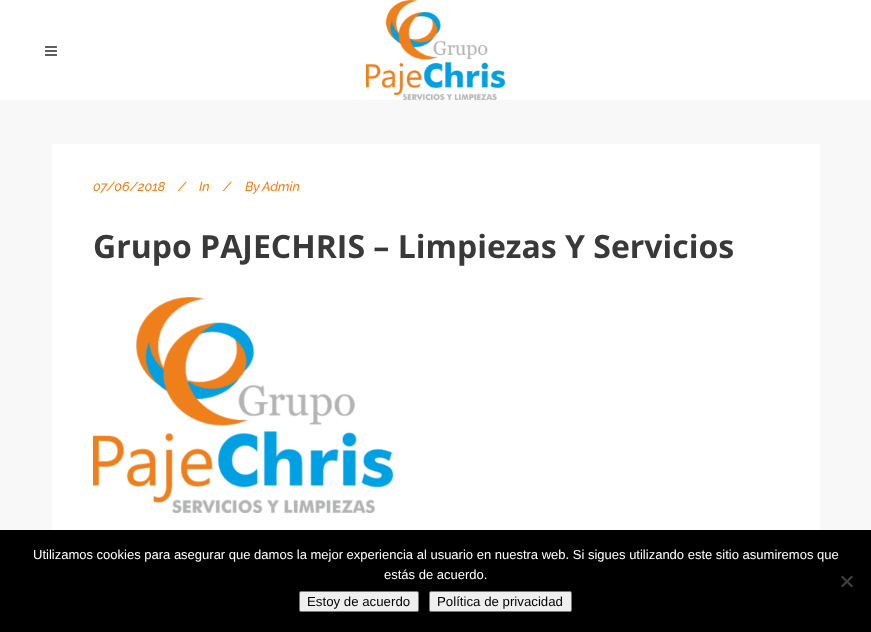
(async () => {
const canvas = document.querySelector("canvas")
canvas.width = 871
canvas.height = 632
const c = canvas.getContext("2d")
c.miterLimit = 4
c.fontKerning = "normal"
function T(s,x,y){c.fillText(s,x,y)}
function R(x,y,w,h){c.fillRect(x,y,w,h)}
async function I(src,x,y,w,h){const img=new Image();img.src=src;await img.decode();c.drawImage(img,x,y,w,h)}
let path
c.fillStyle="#f8f8f8"
R(0,0,871,632)
c.fillStyle="#fff"
R(0,0,871,100)
await I("1.png",45,46,12,10)
await I("2.png",366,0,139,100)
R(52,144,768,386)
c.font="italic 500 13px Raleway"
c.fillStyle="#ef7f1a"
T("07/06/2018",93,191)
T("/",178,191)
T("In",199,191)
T("/",223,191)
T("By",245,191)
T("Admin",262,191)
c.font="bold 32px Open Sans"
c.fillStyle="#393939"
T("Grupo PAJECHRIS – Limpiezas Y Servicios",93,258)
await I("3.png",93,297,300,216)
c.fillStyle="#000"
R(0,530,871,102)
c.font="13px Liberation Sans"
c.fillStyle="#fff"
T("Utilizamos cookies para asegurar que damos la mejor experiencia al usuario en nuestra web. Si sigues utilizando este sitio asumiremos que",33,559)
T("estás de acuerdo.",384,579)
c.fillStyle="#404040"
path = new Path2D("M851.5 575.5l1.5 1.5l-10.5 10.5l-1.5-1.5z")
c.fill(path)
path = new Path2D("M841 577l1.5-1.5l10.5 10.5l-1.5 1.5z")
c.fill(path)
c.fillStyle="#efefef"
c.beginPath()
c.roundRect(299.5,591.5,119,20,1.5)
c.fill()
c.strokeStyle="#767676"
c.stroke()
c.font="13.25px Liberation Sans"
c.fillStyle="#000"
T("Estoy de acuerdo",307,606)
c.fillStyle="#efefef"
c.beginPath()
c.roundRect(429.5,591.5,142,20,1.5)
c.fill()
c.stroke()
c.fillStyle="#000"
T("Política de privacidad",437,606)
})()
